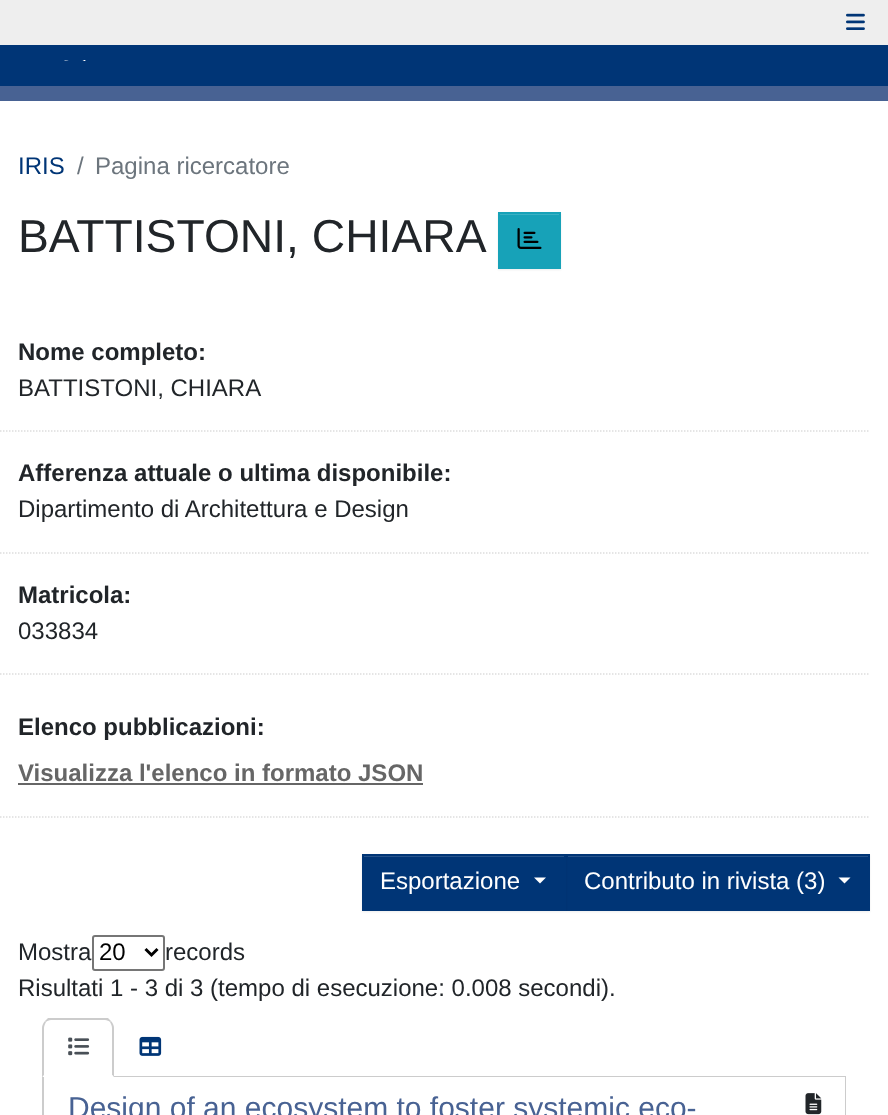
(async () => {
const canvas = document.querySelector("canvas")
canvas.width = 888
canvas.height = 1115
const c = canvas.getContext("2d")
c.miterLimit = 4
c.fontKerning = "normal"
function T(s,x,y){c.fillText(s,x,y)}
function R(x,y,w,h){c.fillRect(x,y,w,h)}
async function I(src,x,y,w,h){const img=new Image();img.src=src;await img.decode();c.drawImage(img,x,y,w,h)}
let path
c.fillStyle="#fff"
R(0,0,888,1115)
c.fillStyle="#eee"
R(0,0,888,45)
await I("1.png",846,13,19,17)
c.fillStyle="#003576"
R(0,45,888,41)
c.fillStyle="#486293"
R(0,86,888,15)
await I("2.png",64,60,22,1)
c.font="24px Liberation Sans"
c.fillStyle="#003576"
T("IRIS",18,174)
c.fillStyle="#6c757d"
T("/",77,174)
T("Pagina ricercatore",95,174)
c.font="46.25px Liberation Sans"
c.fillStyle="#212529"
T("BATTISTONI, CHIARA",18,252)
c.fillStyle="#00000012"
c.filter="blur(1px)"
c.beginPath()
c.rect(498,213,63,57)
c.fill()
c.filter="none"
c.fillStyle="#17a2b8"
R(500,215,59,52)
c.fillStyle="#3ab0c3"
R(500,214,60,1)
c.strokeStyle="#17a2b8"
c.lineWidth=2
c.strokeRect(499,213,61,55)
await I("3.png",517,228,25,21)
path = new Path2D("M-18 431h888")
c.strokeStyle="#ddd"
c.lineWidth=1.5
c.setLineDash([1.5,1.5])
c.stroke(path)
c.font="bold 24px Liberation Sans"
c.fillStyle="#212529"
T("Nome completo:",18,360)
c.font="24px Liberation Sans"
T("BATTISTONI, CHIARA",18,396)
path = new Path2D("M-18 553h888")
c.stroke(path)
c.font="bold 24px Liberation Sans"
T("Afferenza attuale o ultima disponibile:",18,481)
c.font="24px Liberation Sans"
T("Dipartimento di Architettura e Design",18,517)
path = new Path2D("M-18 674h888")
c.stroke(path)
c.font="bold 24px Liberation Sans"
T("Matricola:",18,603)
c.font="24px Liberation Sans"
T("033834",18,639)
path = new Path2D("M-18 817h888")
c.stroke(path)
c.font="bold 24px Liberation Sans"
T("Elenco pubblicazioni:",18,735)
c.fillStyle="#666"
T("Visualizza l'elenco in formato JSON",18,781)
R(18,783,405,2)
c.fillStyle="#00000012"
c.filter="blur(1px)"
c.beginPath()
c.rect(566,855,304,57)
c.fill()
c.filter="none"
c.fillStyle="#003576"
R(568,857,300,52)
c.fillStyle="#26538b"
R(567,856,302,1)
c.strokeStyle="#003576"
c.lineWidth=2
c.setLineDash([])
c.strokeRect(567,855,302,55)
c.fillStyle="#00000012"
c.filter="blur(1px)"
c.beginPath()
c.rect(362,855,204,57)
c.fill()
c.filter="none"
c.fillStyle="#003576"
R(364,857,200,52)
c.fillStyle="#26538b"
R(363,856,201,1)
c.strokeRect(363,855,202,55)
c.font="24px Liberation Sans"
c.fillStyle="#fff"
T("Esportazione",380,889)
path = new Path2D("M534 877.5h12l-6 6z")
c.fill(path)
T("Contributo in rivista (3)",584,889)
path = new Path2D("M838.5 877.5h12l-6 6z")
c.fill(path)
c.fillStyle="#212529"
T("Mostra",18,960)
c.beginPath()
c.roundRect(93,936,71,34,2)
c.strokeStyle="#767676"
c.stroke()
path = new Path2D("M145.5 949l6 6l6-6")
c.strokeStyle="#000"
c.lineWidth=3
c.stroke(path)
c.fillStyle="#000"
T("20",99,960)
c.fillStyle="#212529"
T("records",165,960)
T("Risultati 1 - 3 di 3 (tempo di esecuzione: 0.008 secondi).",18,996)
c.fillStyle="#ccc"
path = new Path2D("M51 1020c-2 0-4 1-5 2l-1-1l3-3h60l3 3l-1 1c-1-1-3-2-5-2z")
c.fill(path)
c.strokeStyle="#ccc"
c.lineWidth=2
c.strokeRect(43,1077,802,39)
path = new Path2D("M114 1077v-49c0-2-1-5-3-7l-1 1c1 2 2 4 2 6v47z")
c.fill(path)
c.fillStyle="#fff"
path = new Path2D("M114 1077l-2-2v1h-68v-1l-2 2z")
c.fill(path)
c.fillStyle="#ccc"
path = new Path2D("M42 1077l2-2v-47c0-2 1-4 2-6l-1-1c-2 2-3 5-3 7z")
c.fill(path)
await I("4.png",68,1037,22,19)
await I("5.png",139,1036,23,20)
c.fillStyle="#fff"
R(44,1077,801,38)
c.font="30px Liberation Sans"
c.fillStyle="#486293"
T("Design of an ecosystem to foster systemic eco-",68,1118)
await I("6.png",805,1093,17,22)
})()
